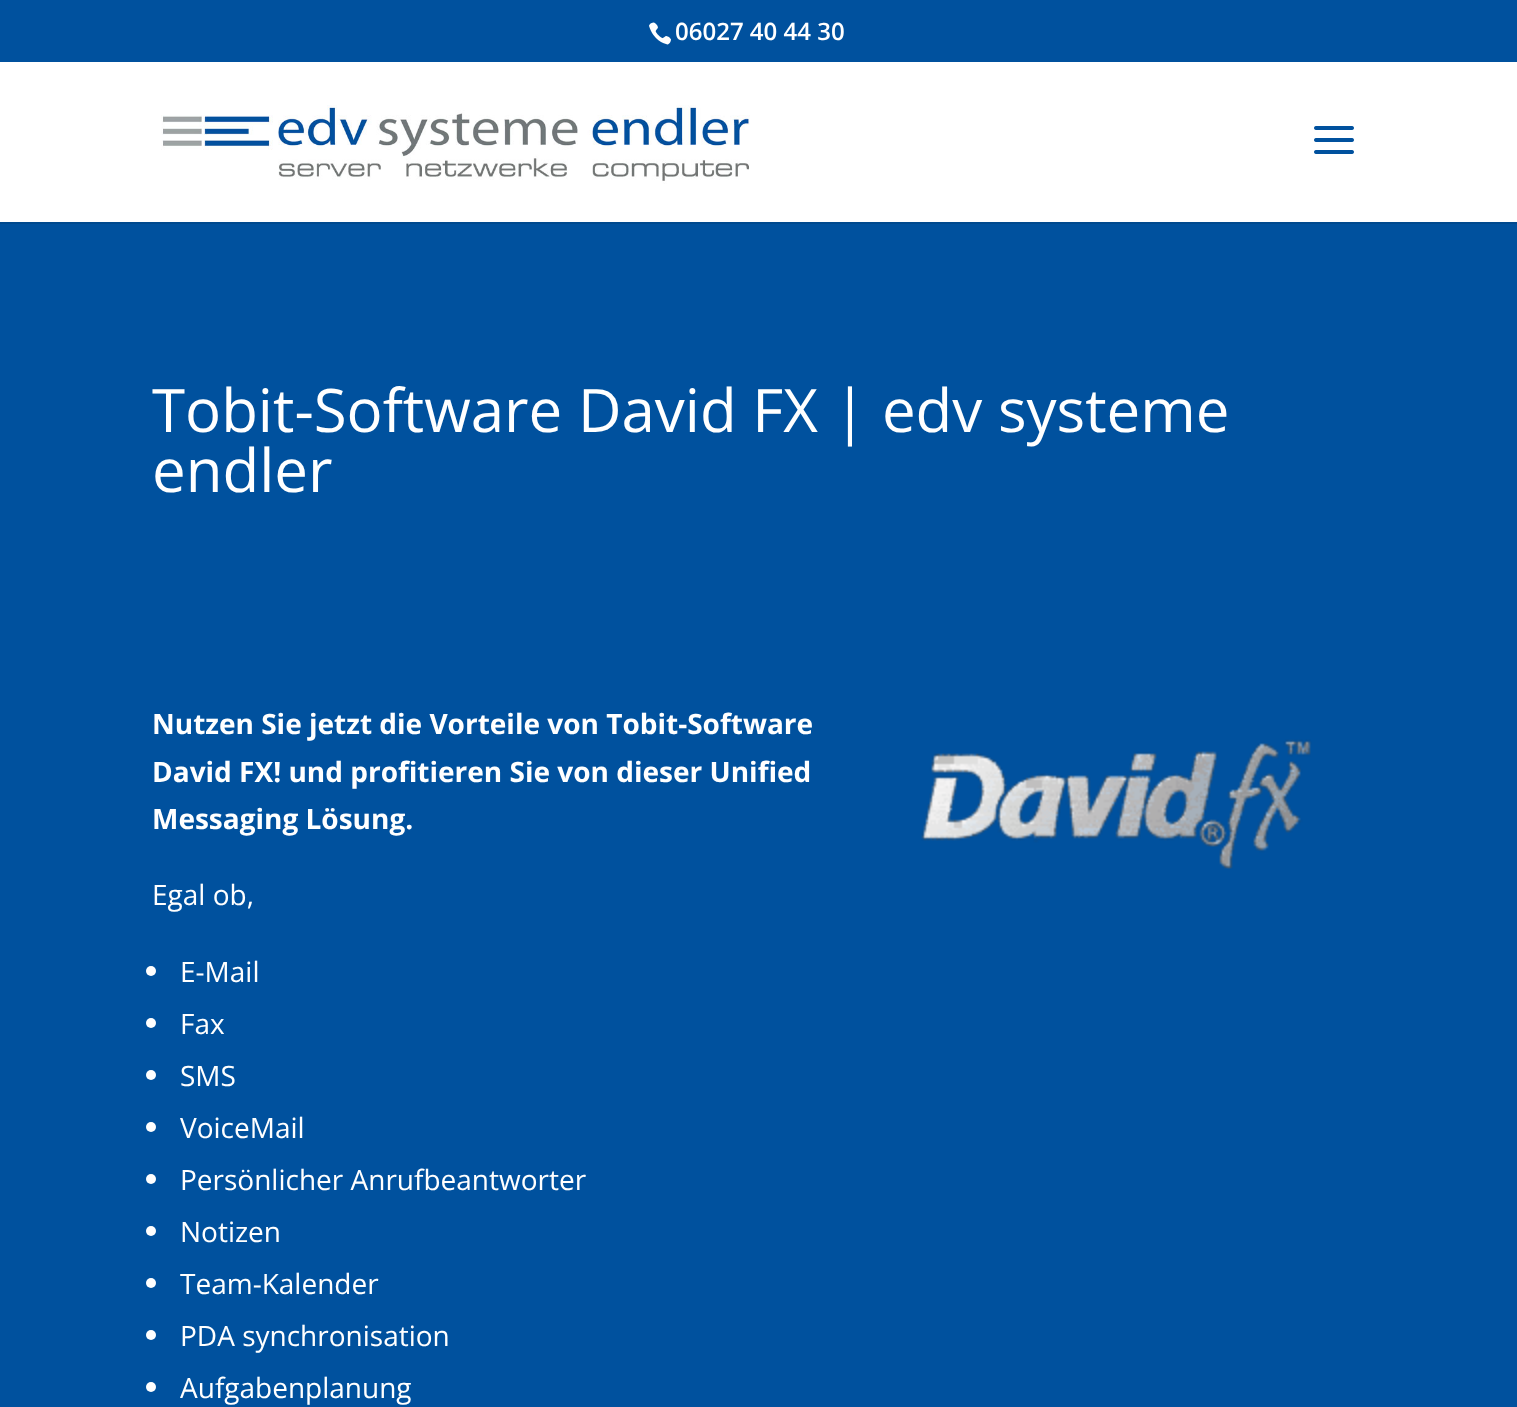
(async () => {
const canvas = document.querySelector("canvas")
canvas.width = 1517
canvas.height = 1407
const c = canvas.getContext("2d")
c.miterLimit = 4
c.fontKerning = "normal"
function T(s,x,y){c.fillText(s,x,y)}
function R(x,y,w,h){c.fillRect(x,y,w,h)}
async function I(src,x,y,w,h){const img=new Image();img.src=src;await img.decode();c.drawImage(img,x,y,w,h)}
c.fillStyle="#00519e"
R(0,0,1517,1407)
await I("1.png",649,22,22,23)
c.font="600 24px Open Sans"
c.fillStyle="#fff"
T("06027 40 44 30",675,40)
c.fillStyle="#00498e"
R(0,222,1517,2)
c.fillStyle="#fff"
R(0,62,1517,160)
await I("2.png",161,105,589,79)
await I("3.png",1314,126,40,28)
c.font="60px Open Sans"
T("Tobit-Software David FX | edv systeme",152,432)
T("endler",152,492)
c.font="bold 28px Open Sans"
T("Nutzen Sie jetzt die Vorteile von Tobit-Software",152,734)
T("David FX! und profitieren Sie von dieser Unified",152,782)
await I("4.png",921,739,391,131)
T("Messaging Lösung.",152,829)
c.font="28px Open Sans"
T("Egal ob,",152,905)
c.beginPath()
c.arc(151,971,5,0,7)
c.fill()
T("E-Mail",180,982)
c.beginPath()
c.arc(151,1023,5,0,7)
c.fill()
T("Fax",180,1034)
c.beginPath()
c.arc(151,1075,5,0,7)
c.fill()
T("SMS",180,1086)
c.beginPath()
c.arc(151,1127,5,0,7)
c.fill()
T("VoiceMail",180,1138)
c.beginPath()
c.arc(151,1179,5,0,7)
c.fill()
T("Persönlicher Anrufbeantworter",180,1190)
c.beginPath()
c.arc(151,1231,5,0,7)
c.fill()
T("Notizen",180,1242)
c.beginPath()
c.arc(151,1283,5,0,7)
c.fill()
T("Team-Kalender",180,1294)
c.beginPath()
c.arc(151,1335,5,0,7)
c.fill()
T("PDA synchronisation",180,1346)
c.beginPath()
c.arc(151,1387,5,0,7)
c.fill()
T("Aufgabenplanung",180,1398)
})()
